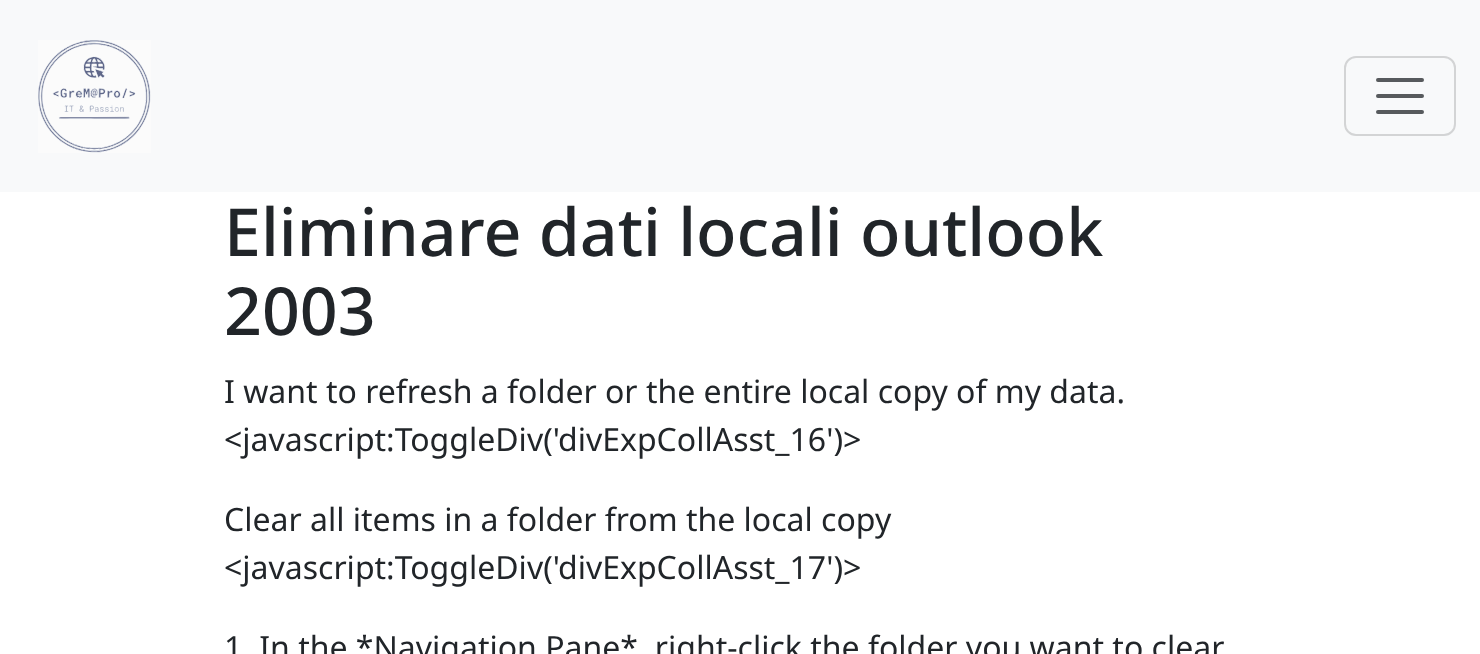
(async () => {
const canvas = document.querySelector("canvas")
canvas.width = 1480
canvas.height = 654
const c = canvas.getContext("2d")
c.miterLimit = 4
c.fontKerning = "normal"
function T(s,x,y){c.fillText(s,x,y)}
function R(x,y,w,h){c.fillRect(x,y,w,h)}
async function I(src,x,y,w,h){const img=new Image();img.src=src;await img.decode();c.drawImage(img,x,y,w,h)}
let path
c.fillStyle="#fff"
R(0,0,1480,654)
c.fillStyle="#f8f9fa"
R(0,0,1480,192)
await I("1.png",38,40,113,113)
c.beginPath()
c.roundRect(1345,57,110,78,11)
c.strokeStyle="#d3d4d5"
c.lineWidth=2
c.stroke()
path = new Path2D("M1378 80h44m-44 16h44m-44 16h44")
c.strokeStyle="#575a5d"
c.lineWidth=4
c.lineCap="round"
c.stroke(path)
c.font="500 66.25px Noto Sans"
c.fillStyle="#212529"
T("Eliminare dati locali outlook",224,256)
T("2003",224,335)
c.font="32px Noto Sans"
T("I want to refresh a folder or the entire local copy of my data.",224,403)
T("<javascript:ToggleDiv('divExpCollAsst_16')>",224,451)
T("Clear all items in a folder from the local copy",224,531)
T("<javascript:ToggleDiv('divExpCollAsst_17')>",224,579)
T("1. In the *Navigation Pane*, right-click the folder you want to clear.",224,659)
})()
